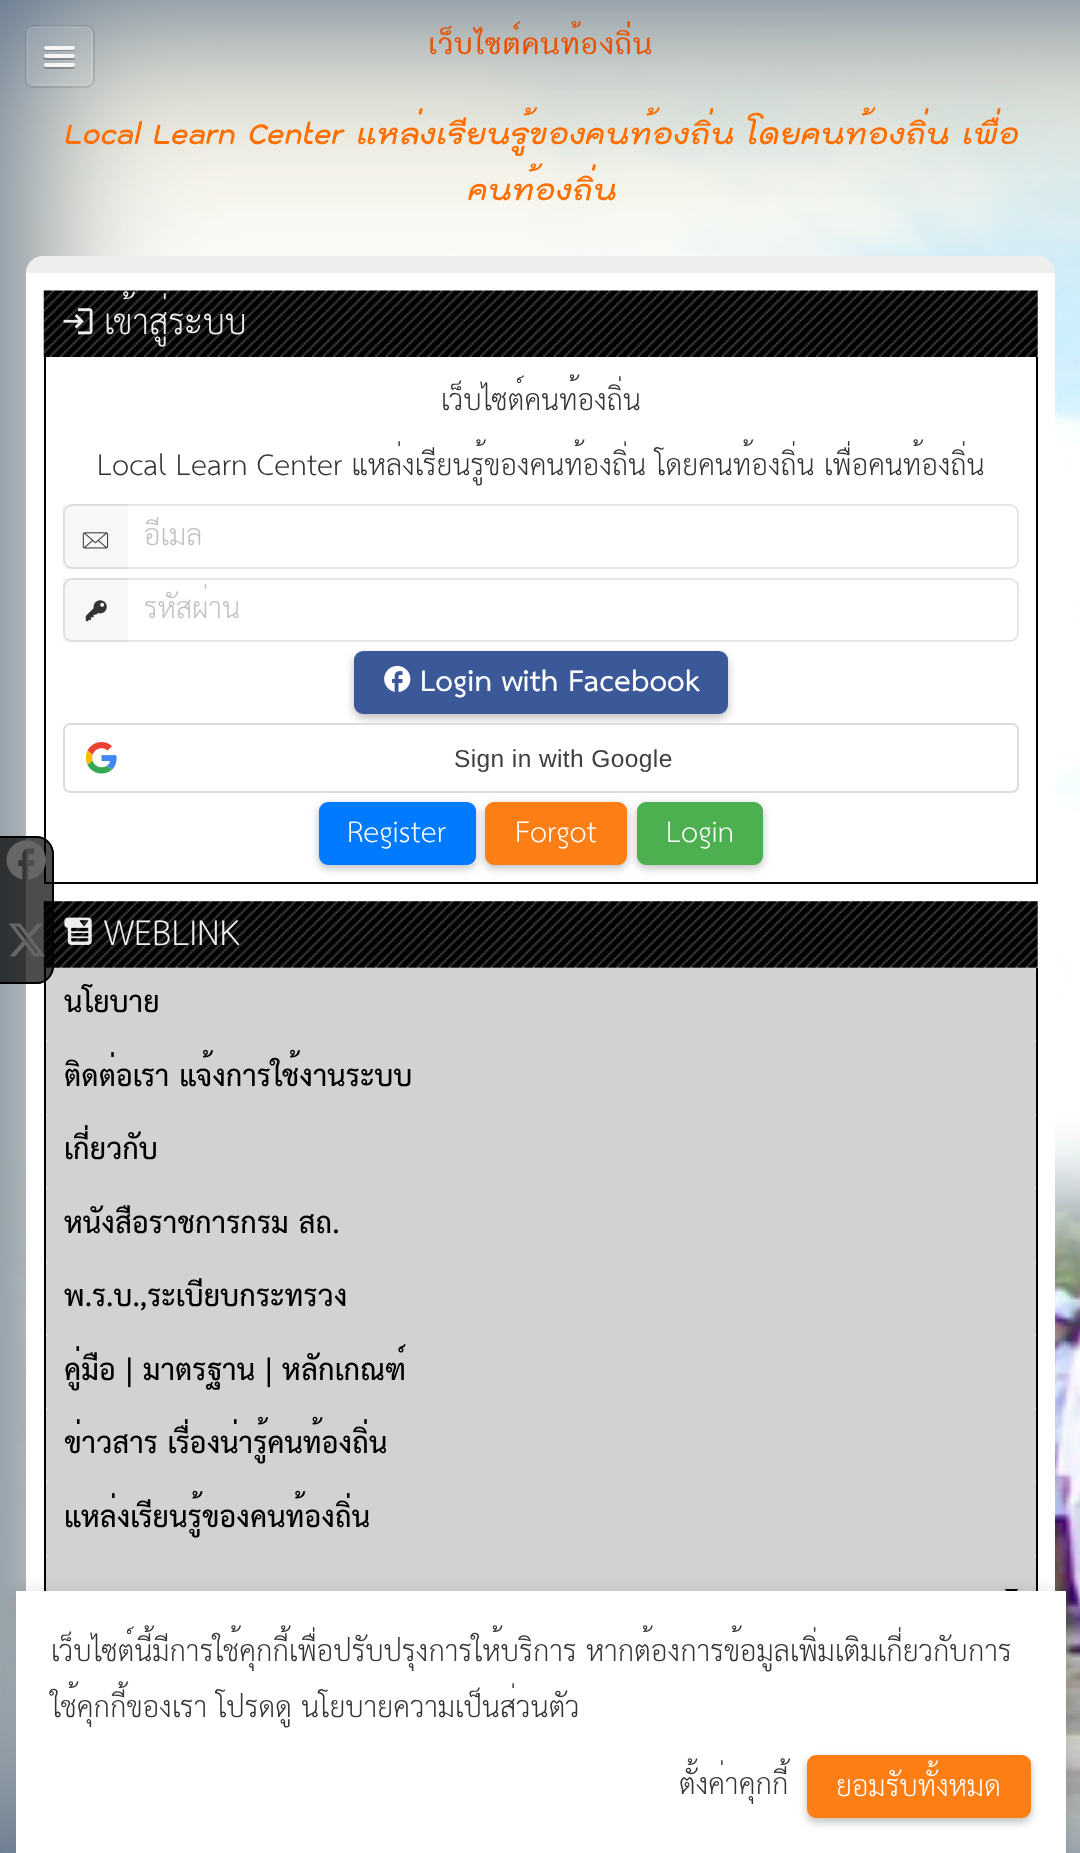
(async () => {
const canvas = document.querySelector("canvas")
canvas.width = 1080
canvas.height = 1853
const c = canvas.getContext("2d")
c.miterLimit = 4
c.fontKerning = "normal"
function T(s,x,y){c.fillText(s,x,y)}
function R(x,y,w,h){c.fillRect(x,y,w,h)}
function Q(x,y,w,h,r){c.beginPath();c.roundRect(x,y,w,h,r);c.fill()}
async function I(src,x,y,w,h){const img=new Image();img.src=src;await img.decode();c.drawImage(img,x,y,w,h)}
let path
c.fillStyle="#455e7f"
R(0,0,1080,1853)
await I("1.png",0,0,1080,1853)
c.beginPath()
c.roundRect(26,26,68,61,8)
c.strokeStyle="#0000001a"
c.lineWidth=2
c.stroke()
c.fillStyle="#ffffff1a"
Q(26,26,67,60,7)
c.beginPath()
c.roundRect(27,27,65,58,6)
c.strokeStyle="#ffffff1a"
c.stroke()
c.fillStyle="#00000040"
path = new Path2D("M44 48.5c-1 3.5 5.5 2.5 6.5 2.5h18c1 0 7.5 1 6.5-2.5l-1.5 .5h-28z")
c.fill(path)
c.fillStyle="#f5f5f5"
Q(44,46,31,4,2)
c.fillStyle="#00000040"
path = new Path2D("M44 57c-1.5 4 5.5 3 6.5 3h18c1 0 8 1 6.5-3l-1.5 .5h-28z")
c.fill(path)
c.fillStyle="#f5f5f5"
Q(44,54,31,4,2)
c.fillStyle="#00000040"
path = new Path2D("M44.5 66c-2.5 4 5.5 3 6 3h18c.5 0 8.5 1 6-3l-1 .5h-28z")
c.fill(path)
c.fillStyle="#f5f5f5"
Q(44,63,31,4,2)
c.font="bold 28px 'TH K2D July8'"
c.fillStyle="#e65100"
T("เว็บไซต์คนท้องถิ่น",428,54)
c.font="italic bold 28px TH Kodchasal"
c.fillStyle="#ff6f00"
T("Local Learn Center แหล่งเรียนรู้ของคนท้องถิ่น โดยคนท้องถิ่น เพื่อ",63,144)
T("คนท้องถิ่น",466,200)
c.fillStyle="#fff"
c.beginPath()
c.roundRect(26,256,1029,1541,[18,18,0,0])
c.fill()
c.fillStyle="#eee"
path = new Path2D("M44 256h994c9 0 17 7 17 17h-1029c0-10 8-17 18-17z")
c.fill(path)
await I("2.png",43,290,995,67)
await I("3.png",63,308,30,27)
c.font="33.5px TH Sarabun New"
T("เข้าสู่ระบบ",104,334)
c.fillStyle="#000"
R(1036,357,2,527)
R(44,882,994,2)
R(44,357,2,527)
c.font="28px TH Sarabun New"
c.fillStyle="#333"
T("เว็บไซต์คนท้องถิ่น",441,410)
T("Local Learn Center แหล่งเรียนรู้ของคนท้องถิ่น โดยคนท้องถิ่น เพื่อคนท้องถิ่น",97,475)
c.beginPath()
c.roundRect(64,505,954,63,8)
c.strokeStyle="#e6e6e6"
c.stroke()
c.fillStyle="#00000008"
R(63,504,65,65)
await I("4.png",82,532,27,17)
c.save()
c.beginPath()
c.rect(144,509,864,55)
c.clip()
c.fillStyle="#c2c2c2"
T("อีเมล",144,545)
c.restore()
c.fillStyle="#00000042"
c.filter="blur(4.5px)"
c.beginPath()
c.roundRect(354,655,374,63,9)
c.fill()
c.filter="none"
c.beginPath()
c.roundRect(64,579,954,62,8)
c.strokeStyle="#e5e5e5"
c.stroke()
c.fillStyle="#00000008"
R(63,578,65,64)
await I("5.png",85,600,22,22)
c.fillStyle="#c2c2c2"
T("รหัสผ่าน",144,618)
c.fillStyle="#3b5998"
c.beginPath()
c.roundRect(355,652,372,61,8)
c.fill()
c.strokeStyle="#3b5998"
c.stroke()
await I("6.png",384,665,27,27)
c.font="bold 28px TH Sarabun New"
c.fillStyle="#fff"
T("Login with Facebook",420,691)
c.fillStyle="#00000042"
c.filter="blur(4.5px)"
c.beginPath()
c.roundRect(319,805,157,63,9)
c.fill()
c.filter="none"
c.fillStyle="#007bff"
c.beginPath()
c.roundRect(320,803,155,61,8)
c.fill()
c.strokeStyle="#007bff"
c.stroke()
c.fillStyle="#00000042"
c.filter="blur(4.5px)"
c.beginPath()
c.roundRect(485,805,142,63,9)
c.fill()
c.filter="none"
c.fillStyle="#fd7e14"
c.beginPath()
c.roundRect(486,803,140,61,8)
c.fill()
c.strokeStyle="#fd7e14"
c.stroke()
c.fillStyle="#00000042"
c.filter="blur(4.5px)"
c.beginPath()
c.roundRect(637,805,126,63,9)
c.fill()
c.filter="none"
c.fillStyle="#fff"
c.beginPath()
c.roundRect(64,724,954,68,6)
c.fill()
c.strokeStyle="#dadce0"
c.stroke()
await I("7.png",86,742,31,32)
c.letterSpacing="0.4px"
c.font="24.5px Liberation Sans"
c.fillStyle="#3c4043"
T("Sign in with Google",454,767)
c.letterSpacing="0px"
c.font="28px TH Sarabun New"
c.fillStyle="#fff"
T("Register",347,842)
T("Forgot",515,842)
c.fillStyle="#4caf50"
c.beginPath()
c.roundRect(638,803,124,61,8)
c.fill()
c.strokeStyle="#4caf50"
c.stroke()
c.fillStyle="#fff"
T("Login",666,842)
await I("10.png",43,901,995,67)
c.fillStyle="#000"
R(44,968,2,623)
c.fillStyle="#d2d2d2"
Q(46,968,990,73,2)
c.fillStyle="#000000b3"
c.beginPath()
c.roundRect(0,837,54,147,[0,18,18,0])
c.fill()
c.fillStyle="#000"
path = new Path2D("M0 836h37c9 0 17 8 17 18v112c0 10-8 18-17 18h-37zm0 2h37c8 0 15 7 15 16v112c0 9-7 16-15 16h-37z")
c.fill(path,"evenodd")
await I("8.png",6,840,40,40)
await I("9.png",9,923,36,34)
await I("11.png",64,917,28,28)
c.font="33.5px TH Sarabun New"
c.fillStyle="#eee"
T("WEBLINK",104,945)
c.fillStyle="#000"
R(1036,968,2,623)
c.font="bold 28px TH Sarabun New"
T("นโยบาย",64,1012)
c.fillStyle="#d2d2d2"
Q(46,1041,990,74,2)
c.fillStyle="#000"
T("ติดต่อเรา แจ้งการใช้งานระบบ",64,1086)
c.fillStyle="#d2d2d2"
Q(46,1115,990,73,2)
c.fillStyle="#000"
T("เกี่ยวกับ",64,1159)
c.fillStyle="#d2d2d2"
Q(46,1188,990,74,2)
c.fillStyle="#000"
T("หนังสือราชการกรม สถ.",64,1233)
c.fillStyle="#d2d2d2"
Q(46,1262,990,73,2)
c.fillStyle="#000"
T("พ.ร.บ.,ระเบียบกระทรวง",64,1306)
c.fillStyle="#d2d2d2"
Q(46,1335,990,74,2)
c.fillStyle="#000"
T("คู่มือ | มาตรฐาน | หลักเกณฑ์",64,1380)
c.fillStyle="#d2d2d2"
Q(46,1409,990,73,2)
c.fillStyle="#000"
T("ข่าวสาร เรื่องน่ารู้คนท้องถิ่น",64,1453)
c.fillStyle="#d2d2d2"
Q(46,1482,990,74,2)
c.fillStyle="#000"
T("แหล่งเรียนรู้ของคนท้องถิ่น",64,1527)
c.fillStyle="#d2d2d2"
Q(46,1556,990,73,2)
c.fillStyle="#000"
path = new Path2D("M1004.5 1589h14l-7 7z")
c.fill(path)
c.fillStyle="#0000001a"
c.filter="blur(9px)"
c.beginPath()
c.rect(16,1591,1050,262)
c.fill()
c.filter="none"
c.fillStyle="#fff"
R(16,1591,1050,262)
c.font="28px TH Sarabun New"
c.fillStyle="#333"
T("เว็บไซต์นี้มีการใช้คุกกี้เพื่อปรับปรุงการให้บริการ หากต้องการข้อมูลเพิ่มเติมเกี่ยวกับการ",51,1661)
T("ใช้คุกกี้ของเรา โปรดดู นโยบายความเป็นส่วนตัว",51,1717)
T("ตั้งค่าคุกกี้",679,1794)
c.fillStyle="#00000042"
c.filter="blur(4.5px)"
c.beginPath()
c.roundRect(807,1759,224,63,9)
c.fill()
c.filter="none"
c.fillStyle="#fd7e14"
c.beginPath()
c.roundRect(808,1756,222,61,8)
c.fill()
c.strokeStyle="#fd7e14"
c.stroke()
c.fillStyle="#fff"
T("ยอมรับทั้งหมด",836,1796)
})()
